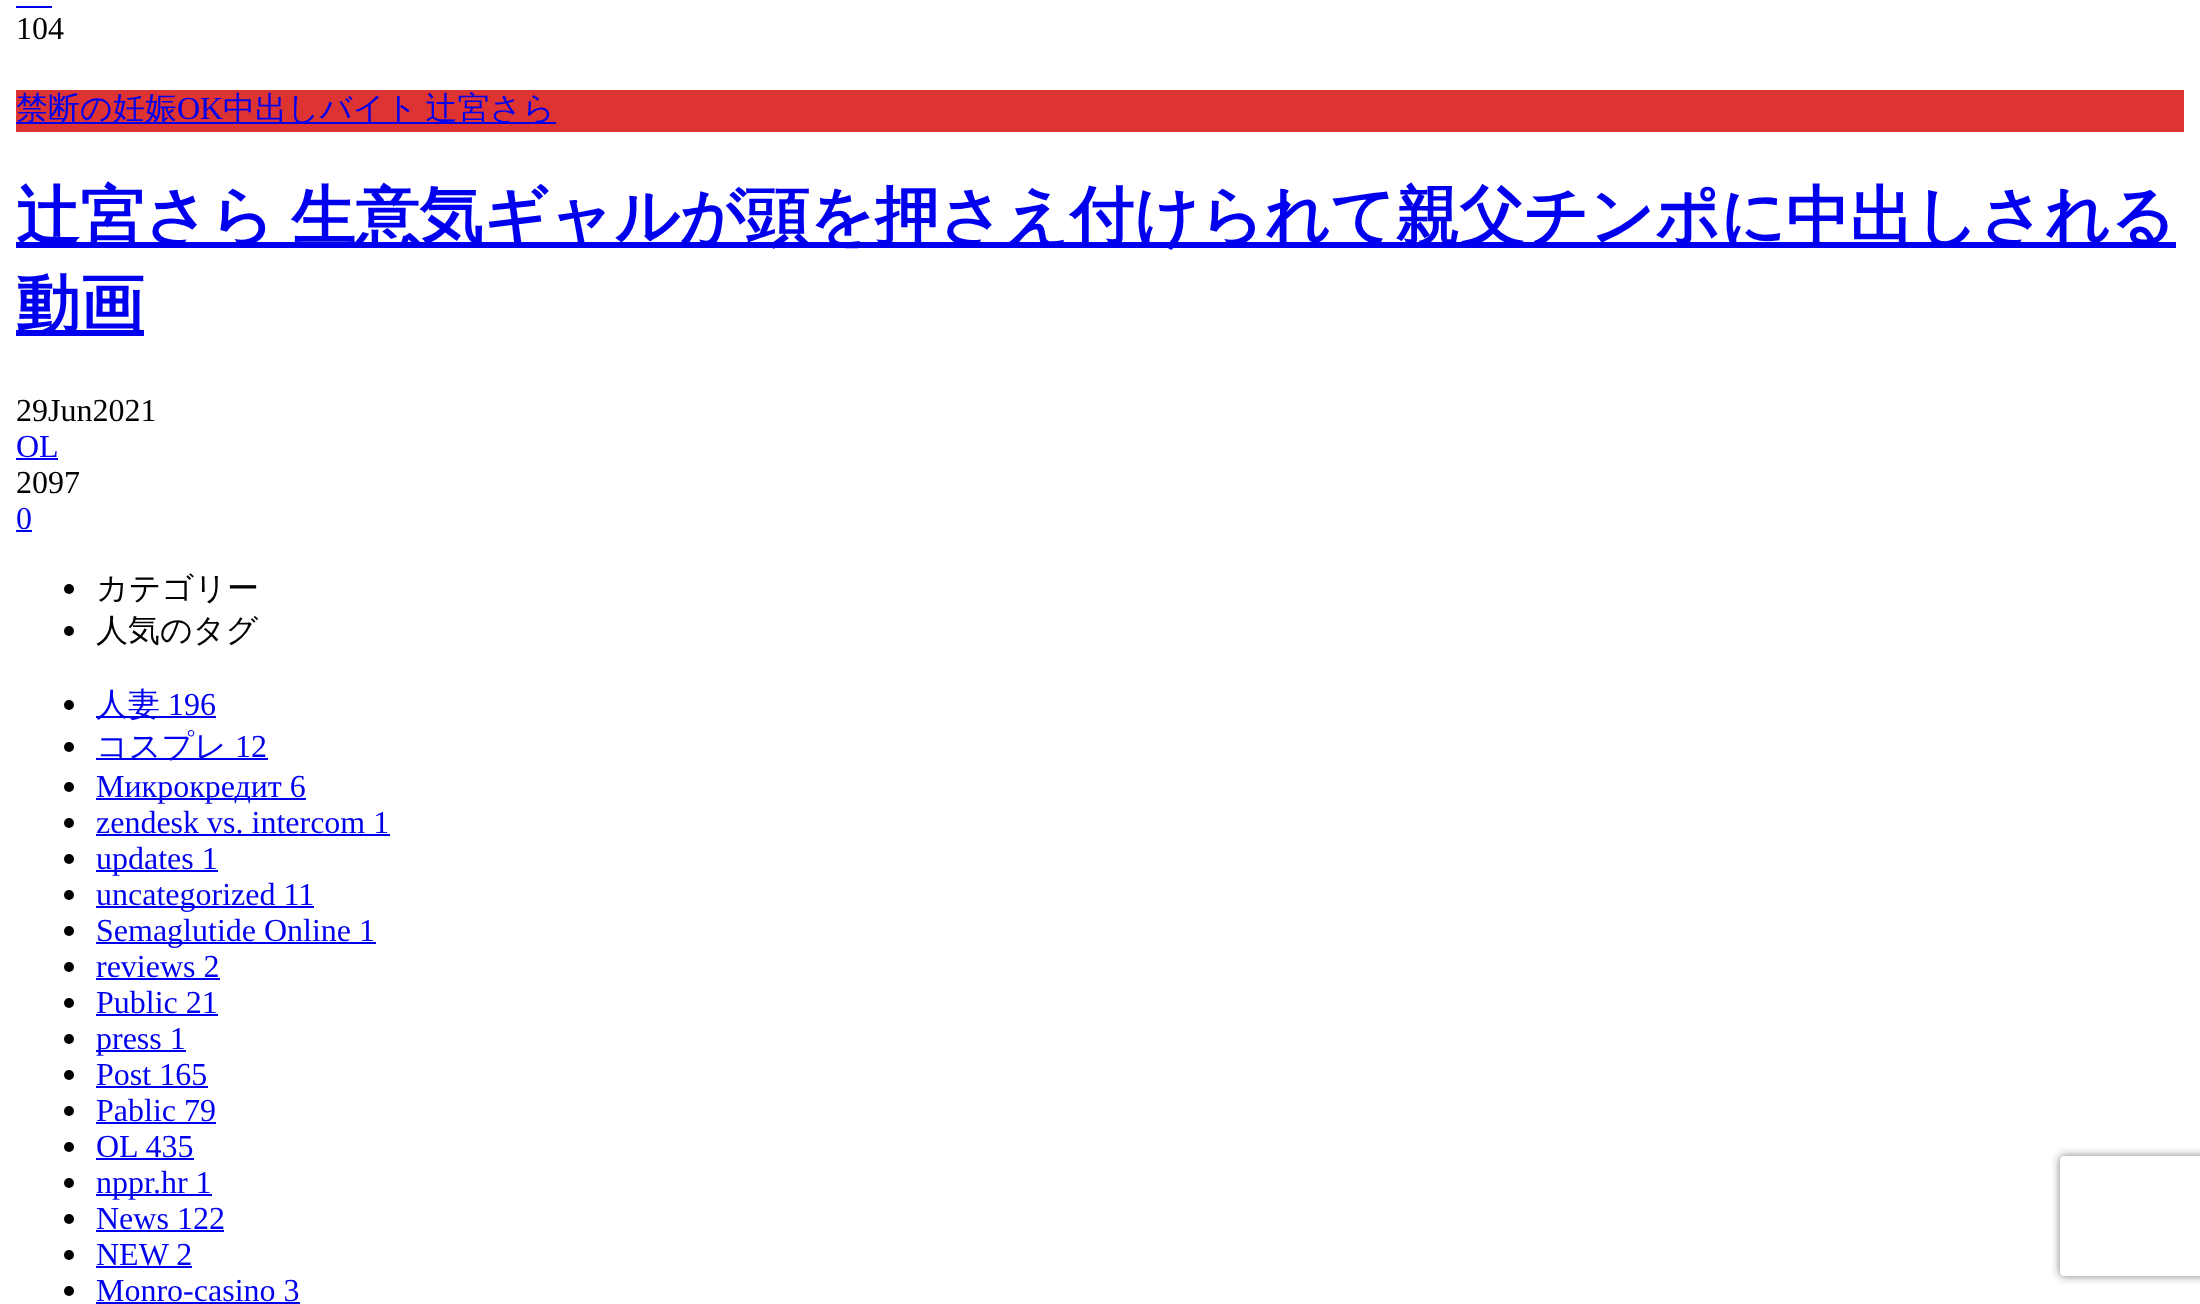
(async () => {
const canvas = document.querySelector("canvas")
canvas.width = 2200
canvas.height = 1304
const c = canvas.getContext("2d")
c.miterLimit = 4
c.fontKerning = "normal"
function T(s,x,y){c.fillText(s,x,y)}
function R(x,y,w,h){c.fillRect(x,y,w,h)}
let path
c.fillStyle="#fff"
R(0,0,2200,1304)
c.fillStyle="#00e"
R(16,6,36,2)
c.font="32px Liberation Serif"
c.fillStyle="#000"
T("104",16,39)
c.fillStyle="#d33"
R(16,90,2168,42)
c.fillStyle="#00e"
R(16,122,540,2)
c.font="500 32px WenQuanYi Zen Hei"
T("禁断の妊娠",16,119)
c.font="32px Liberation Serif"
T("OK",177,119)
c.wordSpacing="-2px"
c.font="500 32px WenQuanYi Zen Hei"
T("中出しバイト 辻宮さら",223,119)
R(16,242,2160,6)
c.wordSpacing="-3px"
c.font="bold 64px WenQuanYi Zen Hei"
T("辻宮さら 生意気ギャルが頭を押さえ付けられて親父チンポに中出しされる",16,238)
R(16,330,128,6)
c.wordSpacing="0px"
T("動画",16,326)
c.font="32px Liberation Serif"
c.fillStyle="#000"
T("29Jun2021",16,421)
c.fillStyle="#00e"
T("OL",16,457)
R(16,458,42,2)
c.fillStyle="#000"
T("2097",16,493)
c.fillStyle="#00e"
T("0",16,529)
R(16,530,16,2)
c.fillStyle="#000"
c.beginPath()
c.arc(69,589,5,0,7)
c.fill()
c.font="500 32px WenQuanYi Zen Hei"
T("カテゴリー",96,599)
c.beginPath()
c.arc(69,631,5,0,7)
c.fill()
T("人気のタグ",96,641)
c.beginPath()
c.arc(69,705,5,0,7)
c.fill()
c.fillStyle="#00e"
R(96,716,120,2)
T("人妻",96,715)
c.font="32px Liberation Serif"
T("196",168,715)
c.fillStyle="#000"
c.beginPath()
c.arc(69,747,5,0,7)
c.fill()
c.fillStyle="#00e"
R(96,758,172,2)
c.font="500 32px WenQuanYi Zen Hei"
T("コスプレ",96,757)
c.font="32px Liberation Serif"
T("12",235,757)
c.fillStyle="#000"
c.beginPath()
c.arc(69,787,5,0,7)
c.fill()
c.fillStyle="#00e"
R(96,798,210,2)
T("Микрокредит 6",96,797)
c.fillStyle="#000"
c.beginPath()
c.arc(69,823,5,0,7)
c.fill()
c.fillStyle="#00e"
T("zendesk vs. intercom 1",96,833)
R(96,834,294,2)
c.fillStyle="#000"
c.beginPath()
c.arc(69,859,5,0,7)
c.fill()
c.fillStyle="#00e"
R(96,870,122,2)
T("updates 1",96,869)
c.fillStyle="#000"
c.beginPath()
c.arc(69,895,5,0,7)
c.fill()
c.fillStyle="#00e"
R(96,906,218,2)
T("uncategorized 11",96,905)
c.fillStyle="#000"
c.beginPath()
c.arc(69,931,5,0,7)
c.fill()
c.fillStyle="#00e"
R(96,942,280,2)
T("Semaglutide Online 1",96,941)
c.fillStyle="#000"
c.beginPath()
c.arc(69,967,5,0,7)
c.fill()
c.fillStyle="#00e"
T("reviews 2",96,977)
R(96,978,124,2)
c.fillStyle="#000"
c.beginPath()
c.arc(69,1003,5,0,7)
c.fill()
c.fillStyle="#00e"
T("Public 21",96,1013)
R(96,1014,122,2)
c.fillStyle="#000"
c.beginPath()
c.arc(69,1039,5,0,7)
c.fill()
c.fillStyle="#00e"
R(96,1050,90,2)
T("press 1",96,1049)
c.fillStyle="#000"
c.beginPath()
c.arc(69,1075,5,0,7)
c.fill()
c.fillStyle="#00e"
T("Post 165",96,1085)
R(96,1086,112,2)
c.fillStyle="#000"
c.beginPath()
c.arc(69,1111,5,0,7)
c.fill()
c.fillStyle="#00e"
T("Pablic 79",96,1121)
R(96,1122,120,2)
c.fillStyle="#000"
c.beginPath()
c.arc(69,1147,5,0,7)
c.fill()
c.fillStyle="#00e"
T("OL 435",96,1157)
R(96,1158,98,2)
c.fillStyle="#000"
c.beginPath()
c.arc(69,1183,5,0,7)
c.fill()
c.fillStyle="#00e"
R(96,1194,116,2)
T("nppr.hr 1",96,1193)
c.fillStyle="#000"
c.beginPath()
c.arc(69,1219,5,0,7)
c.fill()
c.fillStyle="#00e"
T("News 122",96,1229)
R(96,1230,128,2)
c.fillStyle="#000"
c.beginPath()
c.arc(69,1255,5,0,7)
c.fill()
c.fillStyle="#00e"
T("NEW 2",96,1265)
R(96,1266,96,2)
c.fillStyle="#000"
c.beginPath()
c.arc(69,1291,5,0,7)
c.fill()
c.fillStyle="#00e"
T("Monro-casino 3",96,1301)
R(96,1302,204,2)
c.save()
path = new Path2D("M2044 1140h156v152h-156zm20 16h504c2 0 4 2 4 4v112c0 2-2 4-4 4h-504c-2 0-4-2-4-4v-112c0-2 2-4 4-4z")
c.clip(path,"evenodd")
c.fillStyle="#808080"
c.filter="blur(5px)"
c.beginPath()
c.roundRect(2060,1156,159,120,4)
c.fill()
c.filter="none"
c.restore()
})()
